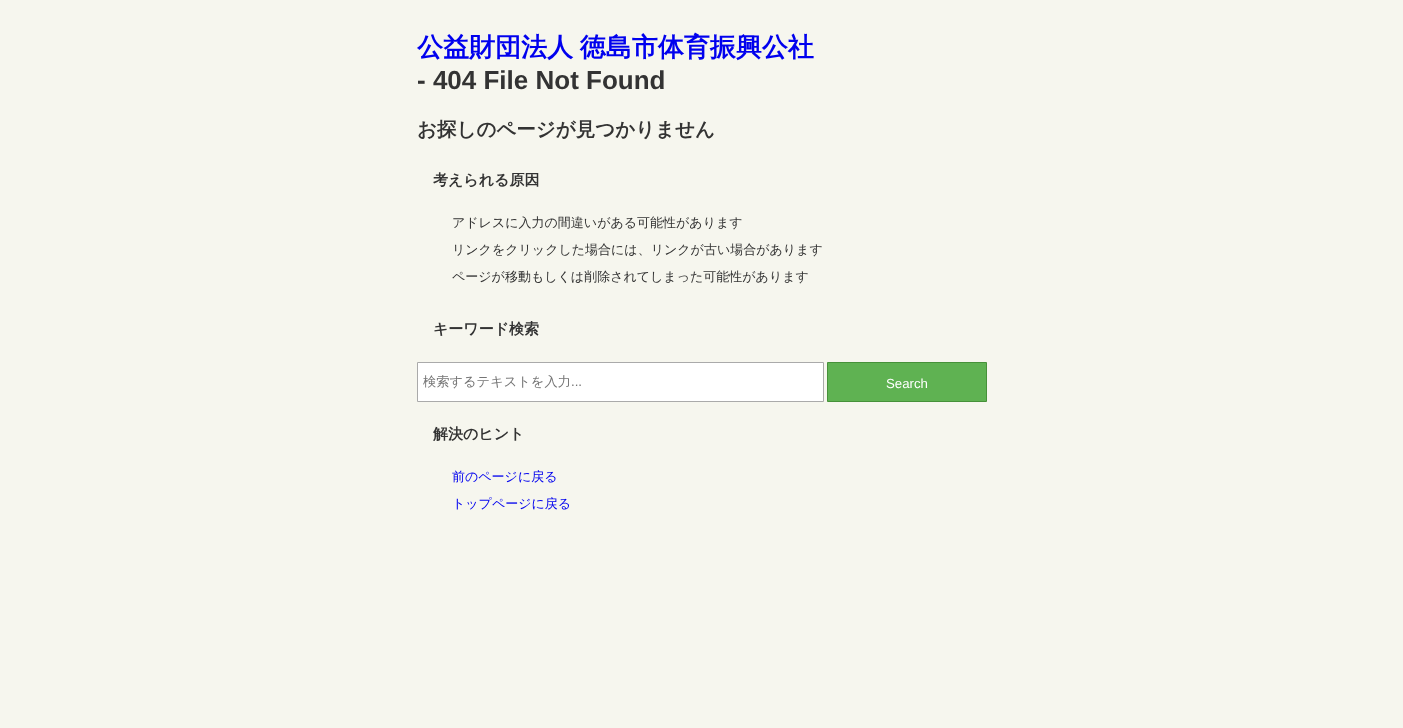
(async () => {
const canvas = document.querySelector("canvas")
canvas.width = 1403
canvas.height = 728
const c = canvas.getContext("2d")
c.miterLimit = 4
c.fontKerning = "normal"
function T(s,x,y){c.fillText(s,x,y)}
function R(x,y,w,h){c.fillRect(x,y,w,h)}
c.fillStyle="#f6f6ee"
R(0,0,1403,728)
c.wordSpacing="-1px"
c.font="bold 26px WenQuanYi Zen Hei"
c.fillStyle="#00e"
T("公益財団法人 徳島市体育振興公社",417,56)
c.wordSpacing="0px"
c.font="bold 26px Liberation Sans"
c.fillStyle="#333"
T("- 404 File Not Found",417,89)
c.font="bold 19.5px WenQuanYi Zen Hei"
T("お探しのページが見つかりません",417,136)
c.font="bold 15px WenQuanYi Zen Hei"
T("考えられる原因",433,185)
c.font="500 13px WenQuanYi Zen Hei"
T("アドレスに入力の間違いがある可能性があります",452,227)
T("リンクをクリックした場合には、リンクが古い場合があります",452,254)
T("ページが移動もしくは削除されてしまった可能性があります",452,281)
c.font="bold 15px WenQuanYi Zen Hei"
T("キーワード検索",433,334)
c.fillStyle="#fff"
c.beginPath()
c.rect(417.5,362.5,406,39)
c.fill()
c.strokeStyle="#aaa"
c.stroke()
c.font="500 13.25px WenQuanYi Zen Hei"
c.fillStyle="#757575"
T("検索するテキストを入力",423,386)
c.font="13.25px Liberation Sans"
T("...",571,386)
c.fillStyle="#5fb252"
c.beginPath()
c.rect(827.5,362.5,159,39)
c.fill()
c.strokeStyle="#469139"
c.stroke()
c.fillStyle="#fff"
T("Search",886,388)
c.font="bold 15px WenQuanYi Zen Hei"
c.fillStyle="#333"
T("解決のヒント",433,439)
c.font="500 13px WenQuanYi Zen Hei"
c.fillStyle="#00e"
T("前のページに戻る",452,481)
T("トップページに戻る",452,508)
})()
